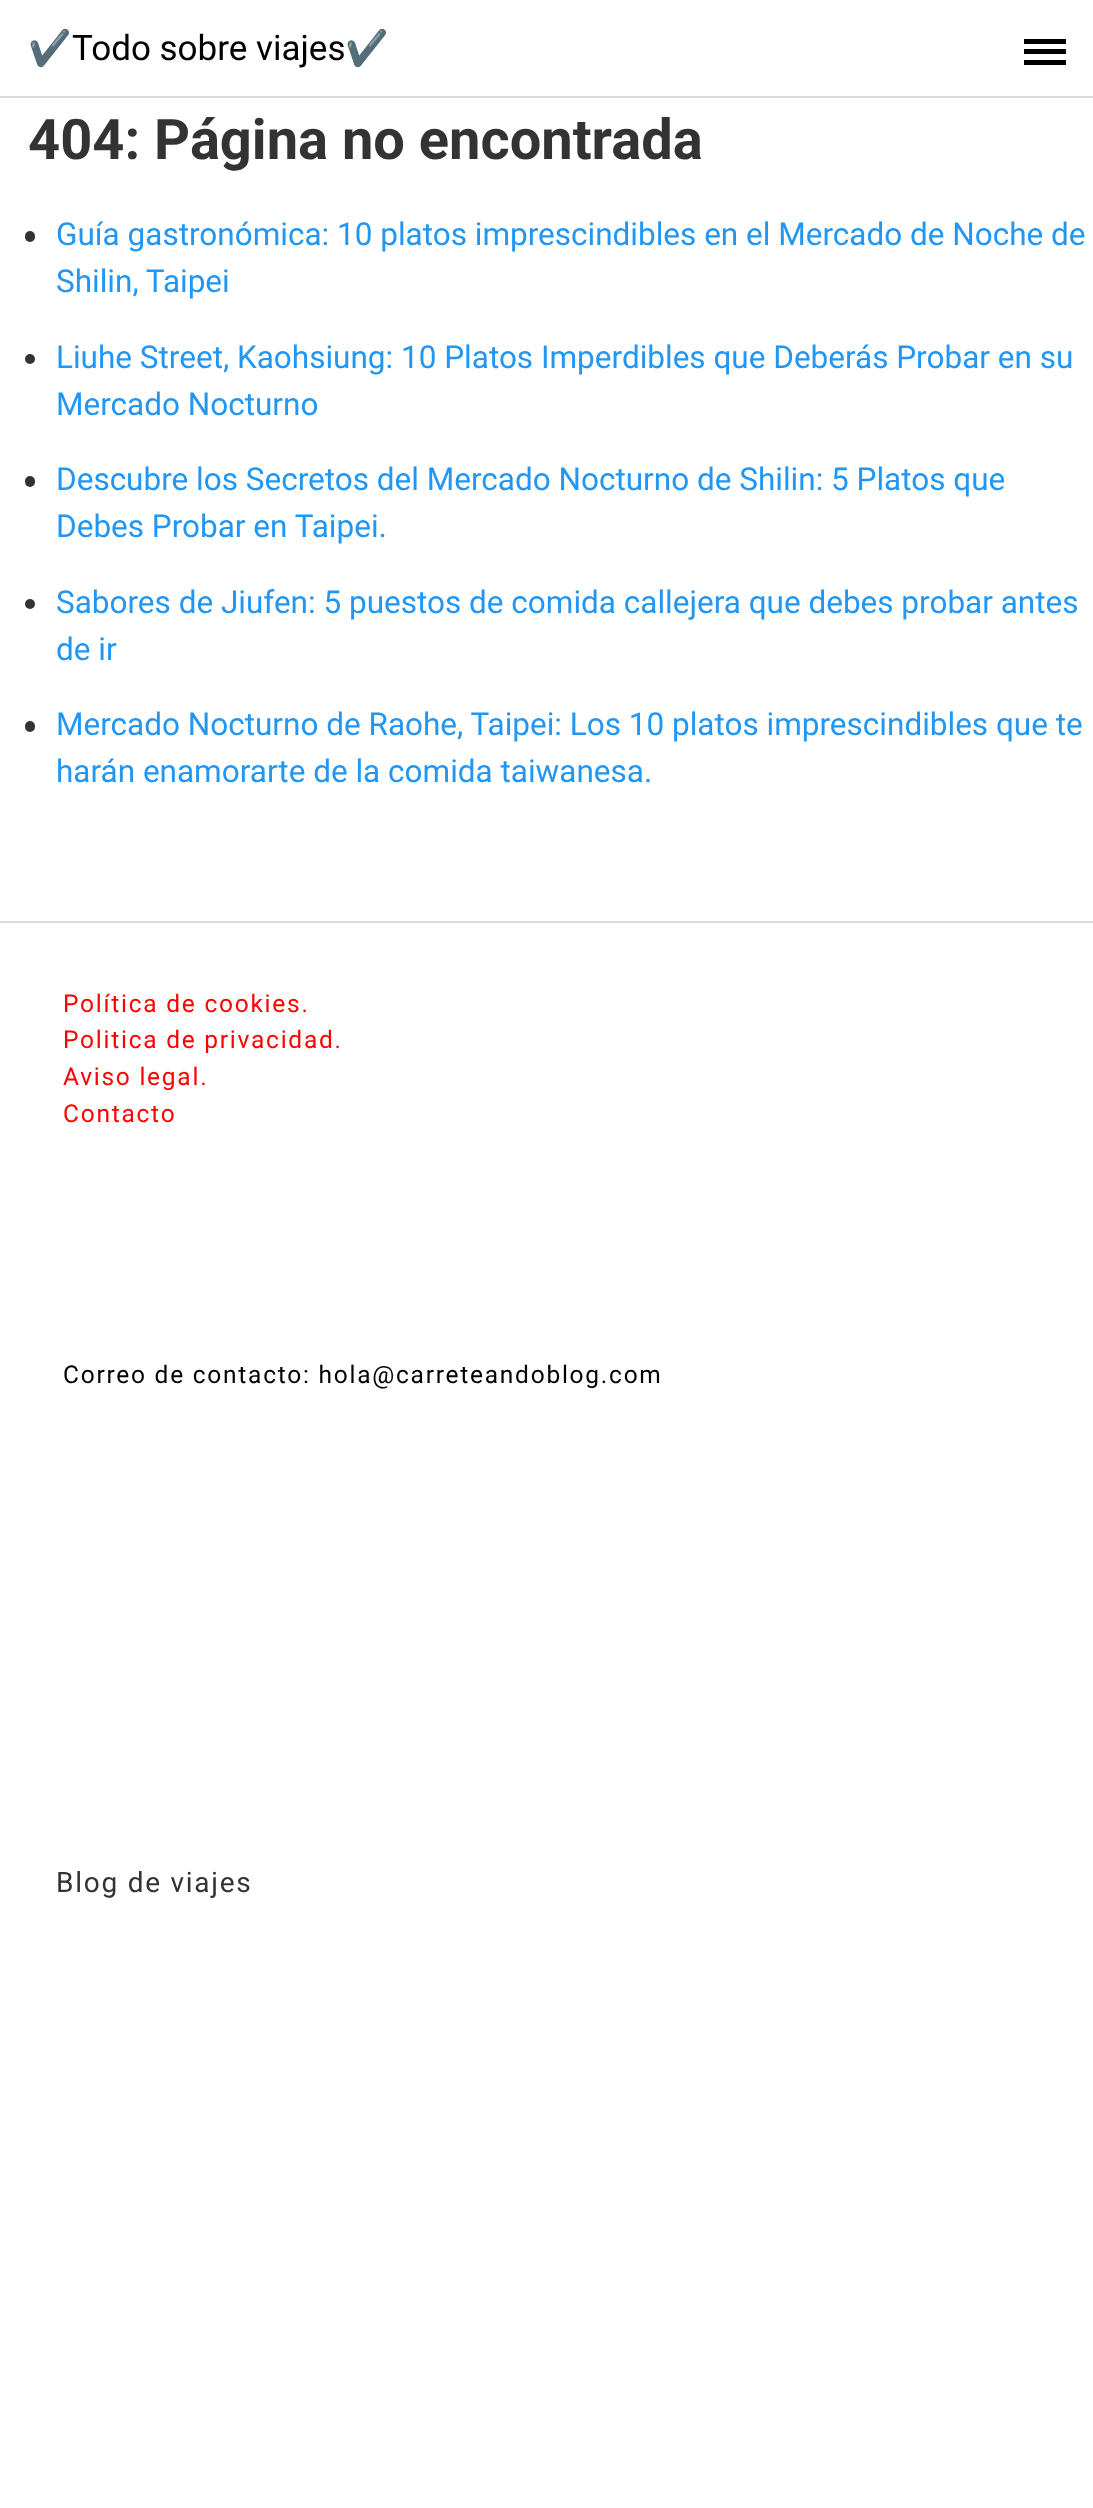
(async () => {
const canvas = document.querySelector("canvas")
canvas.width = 1093
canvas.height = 2508
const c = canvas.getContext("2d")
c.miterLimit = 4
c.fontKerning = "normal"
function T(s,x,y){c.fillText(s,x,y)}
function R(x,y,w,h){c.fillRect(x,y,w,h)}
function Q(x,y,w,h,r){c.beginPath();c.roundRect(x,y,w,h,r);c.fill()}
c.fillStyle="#fff"
R(0,0,1093,2508)
c.fillStyle="#dbdbdb"
R(0,96,1093,2)
c.font="35px Noto Color Emoji"
c.fillStyle="#000"
T("✔️",28,60)
c.font="35px Roboto"
T("Todo sobre viajes",72,60)
c.font="35px Noto Color Emoji"
T("✔️",345,60)
R(1024,49,42,5)
R(1024,39,42,5)
R(1024,60,42,5)
c.font="bold 56px Roboto"
c.fillStyle="#333"
T("404: Página no encontrada",28,159)
Q(25,231,10,11,5)
c.font="31.5px Roboto"
c.fillStyle="#2196f3"
T("Guía gastronómica: 10 platos imprescindibles en el Mercado de Noche de",56,245)
T("Shilin, Taipei",56,292)
c.fillStyle="#333"
c.beginPath()
c.arc(30,359,5,0,7)
c.fill()
c.fillStyle="#2196f3"
T("Liuhe Street, Kaohsiung: 10 Platos Imperdibles que Deberás Probar en su",56,368)
T("Mercado Nocturno",56,415)
c.fillStyle="#333"
Q(25,476,10,11,5)
c.fillStyle="#2196f3"
T("Descubre los Secretos del Mercado Nocturno de Shilin: 5 Platos que",56,490)
T("Debes Probar en Taipei.",56,537)
c.fillStyle="#333"
c.beginPath()
c.arc(30,604,5,0,7)
c.fill()
c.fillStyle="#2196f3"
T("Sabores de Jiufen: 5 puestos de comida callejera que debes probar antes",56,613)
T("de ir",56,660)
c.fillStyle="#333"
Q(25,721,10,11,5)
c.fillStyle="#2196f3"
T("Mercado Nocturno de Raohe, Taipei: Los 10 platos imprescindibles que te",56,735)
T("harán enamorarte de la comida taiwanesa.",56,782)
c.fillStyle="#dbdbdb"
R(0,921,1093,2)
c.letterSpacing="1.75px"
c.font="24.5px Roboto"
c.fillStyle="#f00"
T("Política de cookies.",63,1012)
T("Politica de privacidad.",63,1048)
T("Aviso legal.",63,1085)
T("Contacto",63,1122)
c.fillStyle="#000"
T("Correo de contacto: hola@carreteandoblog.com",63,1383)
c.font="28px Roboto"
c.fillStyle="#333"
T("Blog de viajes",56,1892)
})()
